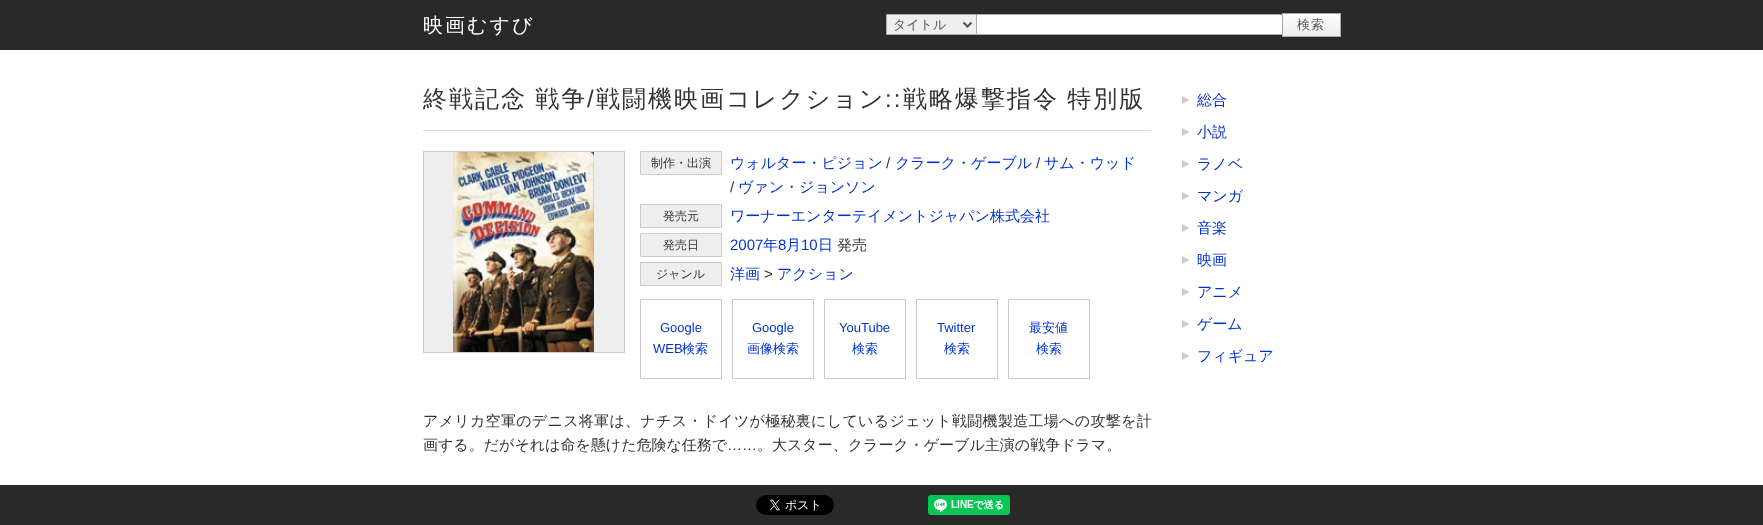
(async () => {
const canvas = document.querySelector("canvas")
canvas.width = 1763
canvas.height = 525
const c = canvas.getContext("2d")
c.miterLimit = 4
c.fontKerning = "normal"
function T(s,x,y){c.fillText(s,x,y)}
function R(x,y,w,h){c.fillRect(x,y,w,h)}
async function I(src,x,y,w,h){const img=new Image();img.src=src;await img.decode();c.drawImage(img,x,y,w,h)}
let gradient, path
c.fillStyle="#fff"
R(0,0,1763,525)
c.fillStyle="#292929"
R(0,0,1763,50)
c.letterSpacing="2px"
c.font="500 20px WenQuanYi Zen Hei"
c.fillStyle="#fff"
T("映画むすび",423,32)
c.fillStyle="#efefef"
c.beginPath()
c.rect(886.5,14.5,90,20)
c.fill()
c.strokeStyle="#aaa"
c.stroke()
path = new Path2D("M963.5 22.5l4 4l4-4")
c.strokeStyle="#555"
c.lineWidth=2
c.stroke(path)
c.letterSpacing="0px"
c.font="500 13px WenQuanYi Zen Hei"
c.fillStyle="#555"
T("タイトル",893,29)
c.fillStyle="#fff"
c.beginPath()
c.rect(976.5,14.5,306,20)
c.fill()
c.strokeStyle="#aaa"
c.lineWidth=1
c.stroke()
gradient = c.createLinearGradient(1312,14,1312,36)
gradient.addColorStop(0,"#fff")
gradient.addColorStop(1,"#eee")
c.fillStyle = gradient
R(1283,14,57,22)
c.strokeRect(1282.5,13.5,58,23)
c.letterSpacing="1px"
c.fillStyle="#555"
T("検索",1297,29)
c.fillStyle="#ddd"
R(423,130,728,1)
c.letterSpacing="2px"
c.wordSpacing="-1px"
c.font="500 24px WenQuanYi Zen Hei"
c.fillStyle="#333"
T("終戦記念 戦争",423,107)
c.wordSpacing="0px"
c.font="24px Liberation Sans"
T("/",587,107)
c.font="500 24px WenQuanYi Zen Hei"
T("戦闘機映画コレクション",596,107)
c.font="24px Liberation Sans"
T("::",885,107)
c.wordSpacing="-1px"
c.font="500 24px WenQuanYi Zen Hei"
T("戦略爆撃指令 特別版",903,107)
c.fillStyle="#eee"
R(424,152,200,200)
await I("1.png",453,152,141,200)
c.strokeStyle="#ccc"
c.strokeRect(423.5,151.5,201,201)
c.beginPath()
c.rect(640.5,151.5,81,23)
c.fill()
c.stroke()
c.letterSpacing="0px"
c.wordSpacing="0px"
c.font="500 12px WenQuanYi Zen Hei"
c.fillStyle="#333"
T("制作・出演",651,167)
c.font="500 15px WenQuanYi Zen Hei"
c.fillStyle="#03c"
T("ウォルター・ピジョン",730,168)
c.font="15px Liberation Sans"
c.fillStyle="#333"
T("/",886,168)
c.font="500 15px WenQuanYi Zen Hei"
c.fillStyle="#03c"
T("クラーク・ゲーブル",895,168)
c.font="15px Liberation Sans"
c.fillStyle="#333"
T("/",1036,168)
c.font="500 15px WenQuanYi Zen Hei"
c.fillStyle="#03c"
T("サム・ウッド",1044,168)
c.font="15px Liberation Sans"
c.fillStyle="#333"
T("/",730,192)
c.font="500 15px WenQuanYi Zen Hei"
c.fillStyle="#03c"
T("ヴァン・ジョンソン",738,192)
c.fillStyle="#eee"
c.beginPath()
c.rect(640.5,204.5,81,23)
c.fill()
c.stroke()
c.font="500 12px WenQuanYi Zen Hei"
c.fillStyle="#333"
T("発売元",663,220)
c.font="500 15px WenQuanYi Zen Hei"
c.fillStyle="#03c"
T("ワーナーエンターテイメントジャパン株式会社",730,221)
c.fillStyle="#eee"
c.beginPath()
c.rect(640.5,233.5,81,23)
c.fill()
c.stroke()
c.font="500 12px WenQuanYi Zen Hei"
c.fillStyle="#333"
T("発売日",663,249)
c.font="15px Liberation Sans"
c.fillStyle="#03c"
T("2007",730,250)
c.font="500 15px WenQuanYi Zen Hei"
T("年",763,250)
c.font="15px Liberation Sans"
T("8",778,250)
c.font="500 15px WenQuanYi Zen Hei"
T("月",786,250)
c.font="15px Liberation Sans"
T("10",801,250)
c.font="500 15px WenQuanYi Zen Hei"
T("日",818,250)
c.fillStyle="#333"
T("発売",837,250)
c.fillStyle="#eee"
c.beginPath()
c.rect(640.5,262.5,81,23)
c.fill()
c.stroke()
c.font="500 12px WenQuanYi Zen Hei"
c.fillStyle="#333"
T("ジャンル",656,278)
c.font="500 15px WenQuanYi Zen Hei"
c.fillStyle="#03c"
T("洋画",730,279)
c.font="15px Liberation Sans"
c.fillStyle="#333"
T(">",764,279)
c.font="500 15px WenQuanYi Zen Hei"
c.fillStyle="#03c"
T("アクション",777,279)
c.strokeRect(640.5,299.5,81,79)
c.font="13px Liberation Sans"
T("Google",660,332)
T("WEB",653,353)
c.font="500 13px WenQuanYi Zen Hei"
T("検索",682,353)
c.strokeRect(732.5,299.5,81,79)
c.font="13px Liberation Sans"
T("Google",752,332)
c.font="500 13px WenQuanYi Zen Hei"
T("画像検索",747,353)
c.strokeRect(824.5,299.5,81,79)
c.font="13px Liberation Sans"
T("YouTube",839,332)
c.font="500 13px WenQuanYi Zen Hei"
T("検索",852,353)
c.strokeRect(916.5,299.5,81,79)
c.font="13px Liberation Sans"
T("Twitter",937,332)
c.font="500 13px WenQuanYi Zen Hei"
T("検索",944,353)
c.strokeRect(1008.5,299.5,81,79)
T("最安値",1029,332)
T("検索",1036,353)
c.letterSpacing="0.3px"
c.font="500 15px WenQuanYi Zen Hei"
c.fillStyle="#333"
T("アメリカ空軍のデニス将軍は、ナチス・ドイツが極秘裏にしているジェット戦闘機製造工場への攻撃を計",423,426)
c.letterSpacing="0px"
T("画する。だがそれは命を懸けた危険な任務で",423,450)
c.font="15px Liberation Sans"
T("……",727,450)
c.font="500 15px WenQuanYi Zen Hei"
T("。大スター、クラーク・ゲーブル主演の戦争ドラマ。",757,450)
await I("2.png",1182,96,8,8)
c.fillStyle="#03c"
T("総合",1197,105)
await I("2.png",1182,128,8,8)
T("小説",1197,137)
await I("2.png",1182,160,8,8)
T("ラノベ",1197,169)
await I("2.png",1182,192,8,8)
T("マンガ",1197,201)
await I("2.png",1182,224,8,8)
T("音楽",1197,233)
await I("2.png",1182,256,8,8)
T("映画",1197,265)
await I("2.png",1182,288,8,8)
T("アニメ",1197,297)
await I("2.png",1182,320,8,8)
T("ゲーム",1197,329)
await I("2.png",1182,352,8,8)
T("フィギュア",1197,361)
c.fillStyle="#292929"
R(0,485,1763,40)
await I("3.png",756,495,78,20)
await I("4.png",928,495,82,20)
})()
